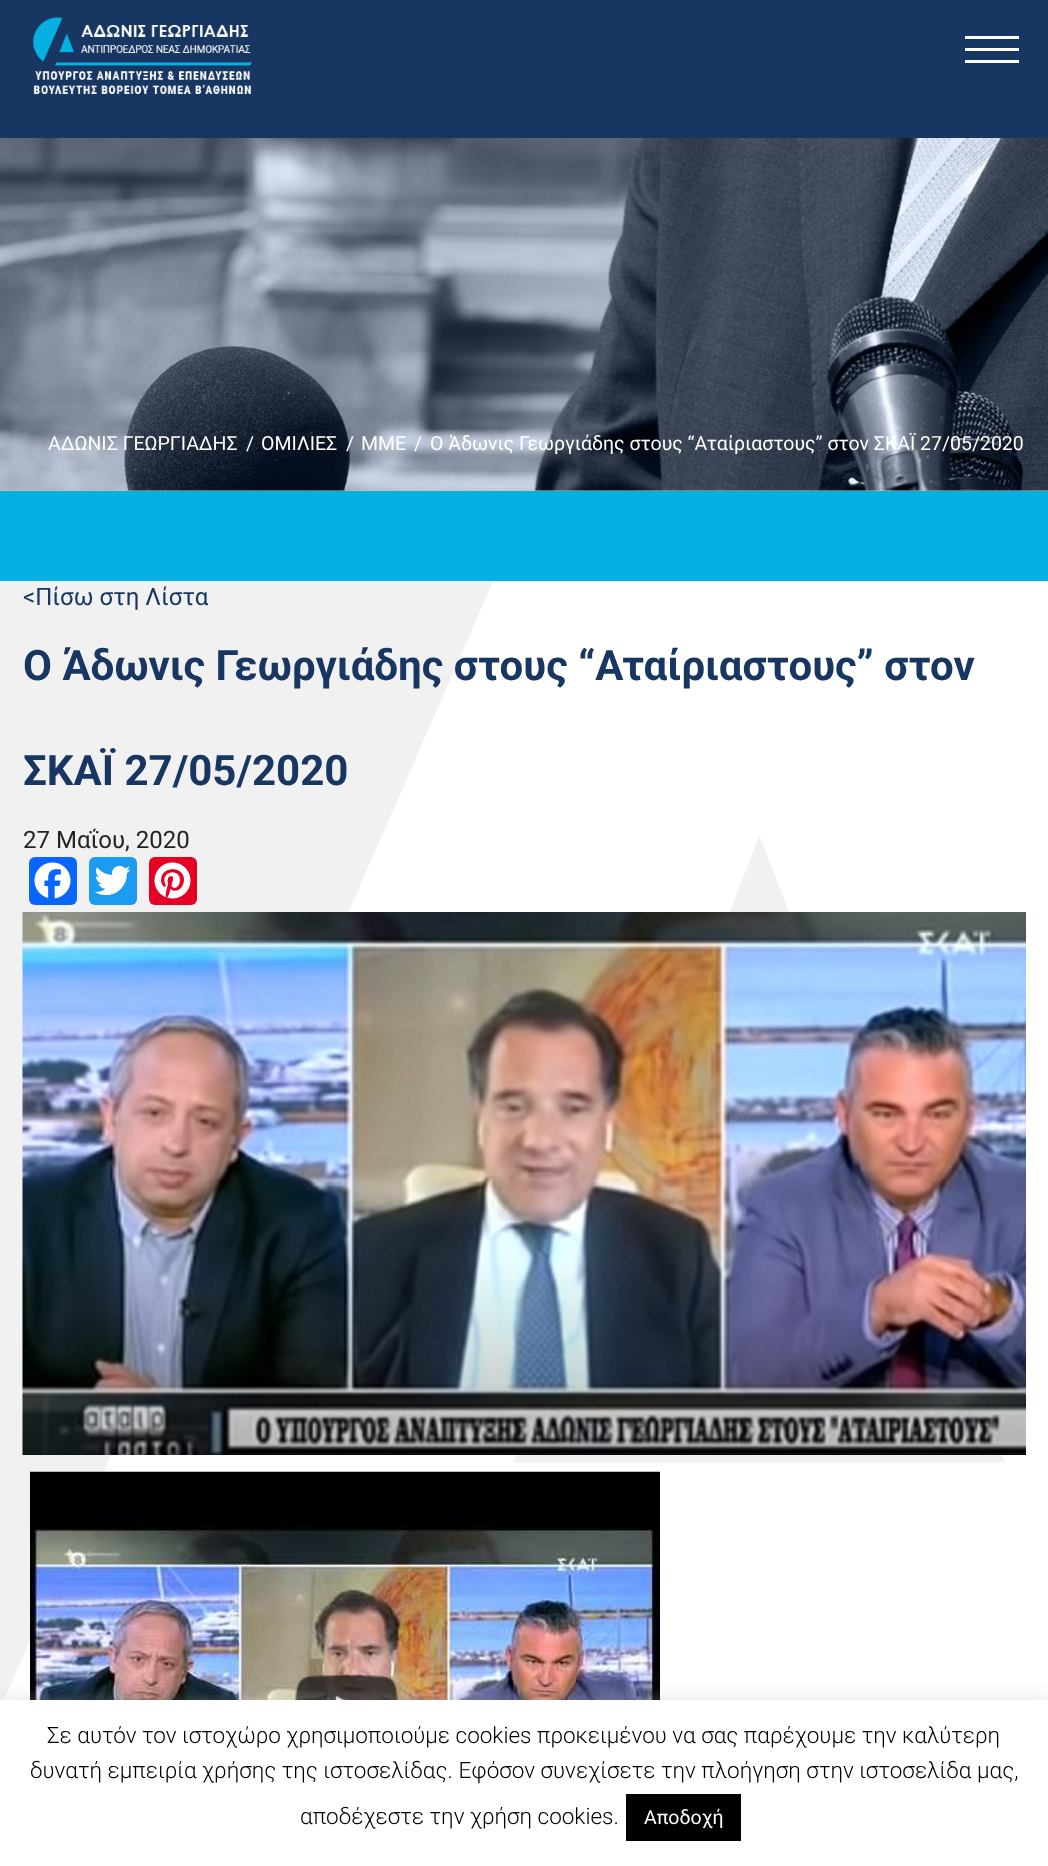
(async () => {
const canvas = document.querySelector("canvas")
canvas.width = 1048
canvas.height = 1866
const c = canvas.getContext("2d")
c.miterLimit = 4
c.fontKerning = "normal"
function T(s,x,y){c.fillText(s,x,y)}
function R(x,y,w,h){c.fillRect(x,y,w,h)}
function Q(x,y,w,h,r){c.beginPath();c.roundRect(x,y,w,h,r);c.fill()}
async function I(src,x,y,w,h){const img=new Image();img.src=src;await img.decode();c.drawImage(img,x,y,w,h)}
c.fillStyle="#fff"
R(0,0,1048,1866)
c.fillStyle="#173662"
R(0,0,1048,138)
await I("1.png",33,17,219,77)
c.fillStyle="#fff"
R(965,48,54,3)
R(965,36,54,3)
R(965,60,54,3)
c.fillStyle="#c3c3c3"
R(0,490,1048,1)
await I("2.png",0,138,1048,353)
c.font="19.5px Roboto"
c.fillStyle="#fff"
T("ΑΔΩΝΙΣ ΓΕΩΡΓΙΑΔΗΣ",48,450)
T("/",246,450)
T("ΟΜΙΛΙΕΣ",261,450)
T("/",346,450)
T("ΜΜΕ",361,450)
T("/",414,450)
T("Ο Άδωνις Γεωργιάδης στους “Αταίριαστους” στον ΣΚΑΪ 27/05/2020",430,450)
c.fillStyle="#07b0e3"
R(0,491,1048,90)
await I("3.png",0,581,1005,1119)
c.font="24px Roboto"
c.fillStyle="#173662"
T("<Πίσω στη Λίστα",23,605)
c.font="bold 42px Roboto"
T("Ο Άδωνις Γεωργιάδης στους “Αταίριαστους” στον",23,680)
T("ΣΚΑΪ 27/05/2020",23,785)
c.font="24px Roboto"
c.fillStyle="#242424"
T("27 Μαΐου, 2020",23,848)
c.fillStyle="#0866ff"
Q(29,857,48,48,6)
await I("4.png",34,862,37,37)
c.fillStyle="#1d9bf0"
Q(89,857,48,48,6)
await I("5.png",94,865,37,31)
c.fillStyle="#e60023"
Q(149,857,48,48,6)
await I("6.png",154,862,37,37)
await I("7.png",22,912,1004,543)
await I("8.png",30,1471,630,229)
await I("9.png",295,1675,103,25)
c.fillStyle="#acabab4d"
c.filter="blur(7.5px)"
c.beginPath()
c.rect(0,1698,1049,167)
c.fill()
c.filter="none"
c.fillStyle="#fff"
R(0,1700,1048,166)
c.font="300 22.5px Roboto"
c.fillStyle="#000"
T("Σε αυτόν τον ιστοχώρο χρησιμοποιούμε cookies προκειμένου να σας παρέχουμε την καλύτερη",47,1743)
T("δυνατή εμπειρία χρήσης της ιστοσελίδας. Εφόσον συνεχίσετε την πλοήγηση στην ιστοσελίδα μας,",30,1778)
T("αποδέχεστε την χρήση cookies.",300,1824)
R(626,1794,115,47)
c.font="19.5px Roboto"
c.fillStyle="#fff"
T("Αποδοχή",644,1824)
})()
